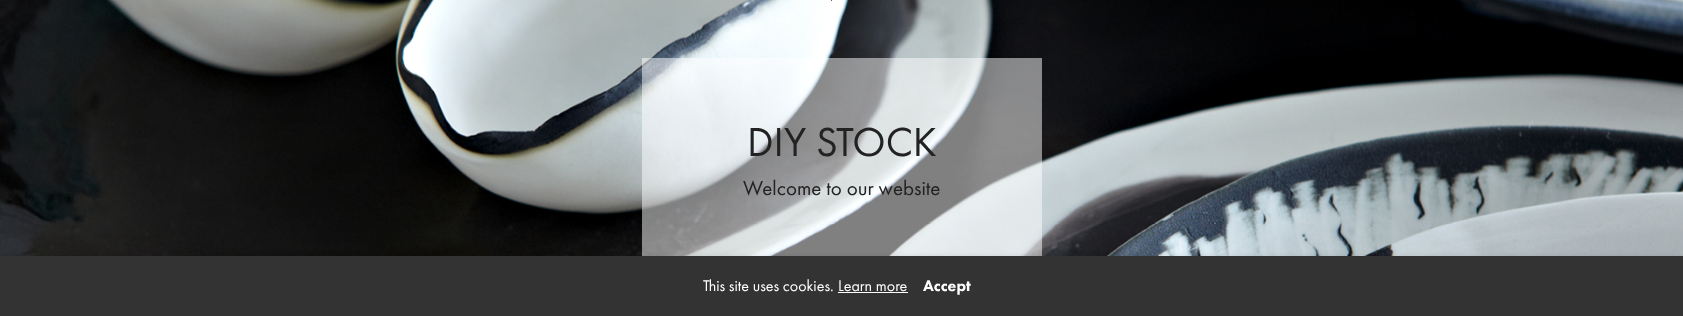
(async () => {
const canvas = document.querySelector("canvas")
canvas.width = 1683
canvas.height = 316
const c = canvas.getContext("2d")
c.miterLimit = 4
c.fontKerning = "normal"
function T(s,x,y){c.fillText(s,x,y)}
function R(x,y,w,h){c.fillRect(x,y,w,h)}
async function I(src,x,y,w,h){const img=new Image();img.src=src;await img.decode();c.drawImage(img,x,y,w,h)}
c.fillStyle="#fff"
R(0,0,1683,316)
await I("1.png",0,0,1683,256)
c.fillStyle="#5f6567"
R(831,0,1,1)
c.fillStyle="#ffffff80"
R(642,58,400,198)
c.font="42px Futura PT"
c.fillStyle="#222"
T("DIY STOCK",747,156)
c.font="21px Futura PT"
T("Welcome to our website",743,195)
c.fillStyle="#00000040"
c.filter="blur(3.5px)"
c.beginPath()
c.rect(0,259,1683,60)
c.fill()
c.filter="none"
c.fillStyle="#333"
R(0,256,1683,60)
c.font="16px Futura PT"
c.fillStyle="#fff"
T("This site uses cookies.",703,291)
T("Learn more",838,291)
R(838,292,70,1)
c.font="900 16px Futura PT"
T("Accept",923,291)
})()
